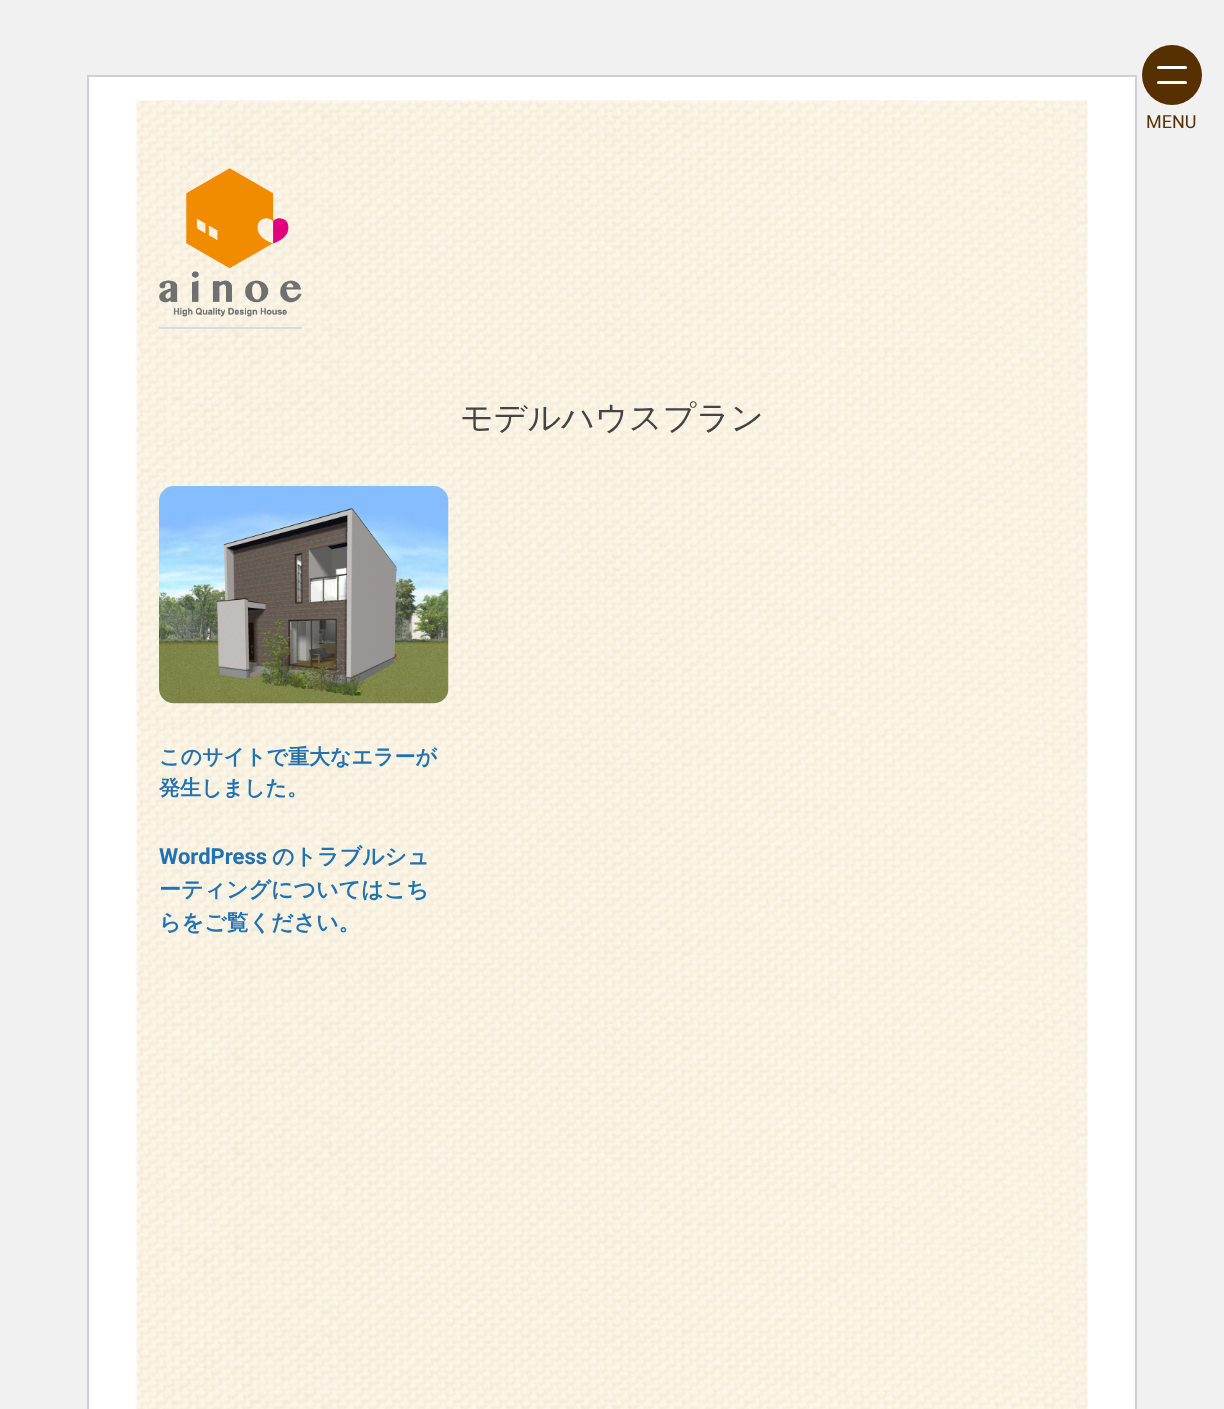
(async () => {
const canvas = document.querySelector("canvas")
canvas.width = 1224
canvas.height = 1409
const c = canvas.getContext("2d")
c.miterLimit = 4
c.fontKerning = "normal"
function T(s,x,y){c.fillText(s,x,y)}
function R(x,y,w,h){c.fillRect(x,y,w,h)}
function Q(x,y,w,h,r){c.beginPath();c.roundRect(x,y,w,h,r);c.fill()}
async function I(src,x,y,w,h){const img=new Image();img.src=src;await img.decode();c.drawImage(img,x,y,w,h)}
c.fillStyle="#f1f1f1"
R(0,0,1224,1409)
c.fillStyle="#fff"
c.beginPath()
c.rect(88,76,1048,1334)
c.fill()
c.strokeStyle="#ccd0d4"
c.lineWidth=2
c.stroke()
await I("1.png",136,100,952,251)
c.fillStyle="#573001"
c.beginPath()
c.arc(1172,75,30,0,7)
c.fill()
c.fillStyle="#fff"
Q(1157,66,30,3,1.5)
Q(1157,81,30,3,1.5)
c.font="18px Roboto"
c.fillStyle="#573001"
T("MENU",1146,128)
c.fillStyle="#dadada"
R(159,327,143,2)
await I("2.png",159,168,143,149)
await I("3.png",136,351,952,1058)
c.font="500 33px WenQuanYi Zen Hei"
c.fillStyle="#444"
T("モデルハウスプラン",460,429)
await I("4.png",159,486,290,218)
c.font="bold 21px WenQuanYi Zen Hei"
c.fillStyle="#2271b1"
T("このサイトで重大なエラーが",159,764)
T("発生しました。",159,795)
c.font="bold 22px Roboto"
T("WordPress",159,864)
c.font="bold 22px WenQuanYi Zen Hei"
T("のトラブルシュ",272,864)
T("ーティングについてはこち",159,897)
T("らをご覧ください。",159,930)
})()
